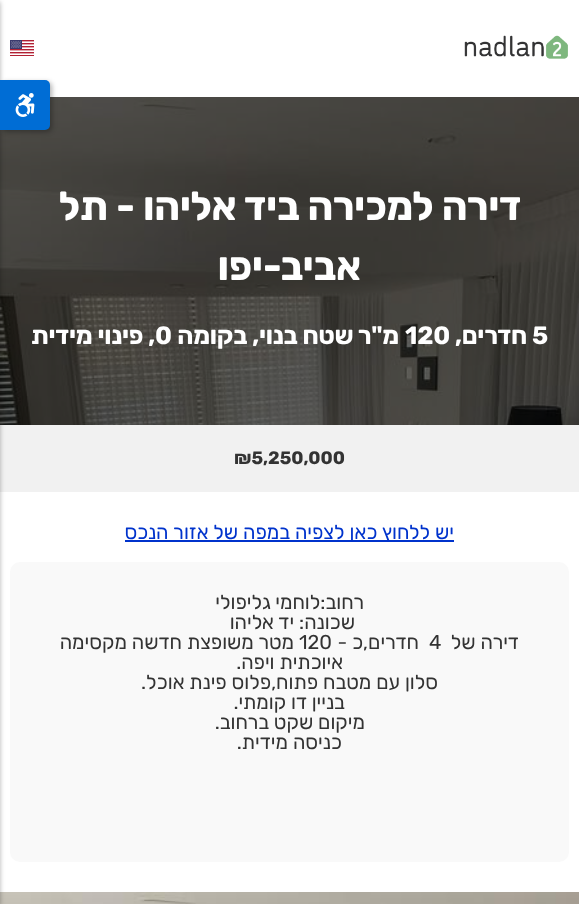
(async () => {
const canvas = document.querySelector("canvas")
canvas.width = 579
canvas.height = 904
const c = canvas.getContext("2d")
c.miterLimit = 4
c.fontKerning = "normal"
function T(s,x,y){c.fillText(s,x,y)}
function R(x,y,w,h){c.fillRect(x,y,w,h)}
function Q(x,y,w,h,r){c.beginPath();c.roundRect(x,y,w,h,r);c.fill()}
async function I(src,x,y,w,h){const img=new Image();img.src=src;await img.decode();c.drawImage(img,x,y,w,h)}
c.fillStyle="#fff"
R(0,0,579,904)
await I("4.png",0,97,579,328)
c.fillStyle="#f1f1f1"
R(0,425,579,67)
await I("5.png",0,892,579,12)
c.fillStyle="#0000004d"
c.filter="blur(2.5px)"
c.beginPath()
c.rect(-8,2,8,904)
c.fill()
c.filter="none"
c.filter="blur(2.5px)"
c.beginPath()
c.roundRect(2,82,50,50,5)
c.fill()
c.filter="none"
c.fillStyle="#006dd5"
c.beginPath()
c.roundRect(0,80,50,50,[0,5,5,0])
c.fill()
await I("1.png",15,93,20,24)
await I("2.png",464,35,104,24)
await I("3.png",10,40,24,16)
c.letterSpacing="-0.4px"
c.wordSpacing="0.25px"
c.direction="rtl"
c.font="bold 40px Rubik"
c.fillStyle="#fff"
T("דירה למכירה ביד אליהו - תל",521,220)
c.wordSpacing="0px"
T("אביב-יפו",361,280)
c.letterSpacing="-0.25px"
c.direction="ltr"
c.font="bold 25px Rubik"
T("5",532,344)
c.direction="rtl"
T("חדרים,",527,344)
c.direction="ltr"
T("120",405,344)
c.direction="rtl"
T("מ\"ר שטח בנוי, בקומה",399,344)
c.direction="ltr"
T("0",155,344)
c.direction="rtl"
T(", פינוי מידית",155,344)
c.letterSpacing="0px"
c.direction="ltr"
c.font="bold 18px Rubik"
c.fillStyle="#333"
T("₪5,250,000",234,464)
c.fillStyle="#03c"
R(125,540,329,2)
c.wordSpacing="0.25px"
c.direction="rtl"
c.font="20px Rubik"
T("יש ללחוץ כאן לצפיה במפה של אזור הנכס",454,539)
c.fillStyle="#f9f9f9"
Q(10,562,559,300,10)
c.wordSpacing="0px"
c.fillStyle="#333"
T("רחוב:לוחמי גליפולי",364,609)
T("שכונה: יד אליהו",355,629)
T("דירה של",519,649)
c.direction="ltr"
T("4",429,649)
c.direction="rtl"
T("חדרים,כ -",419,649)
c.direction="ltr"
T("120",299,649)
c.direction="rtl"
T("מטר משופצת חדשה מקסימה",294,649)
T("איוכתית ויפה.",343,669)
T("סלון עם מטבח פתוח,פלוס פינת אוכל.",438,689)
T("בניין דו קומתי.",345,709)
T("מיקום שקט ברחוב.",365,729)
T("כניסה מידית.",342,749)
})()
